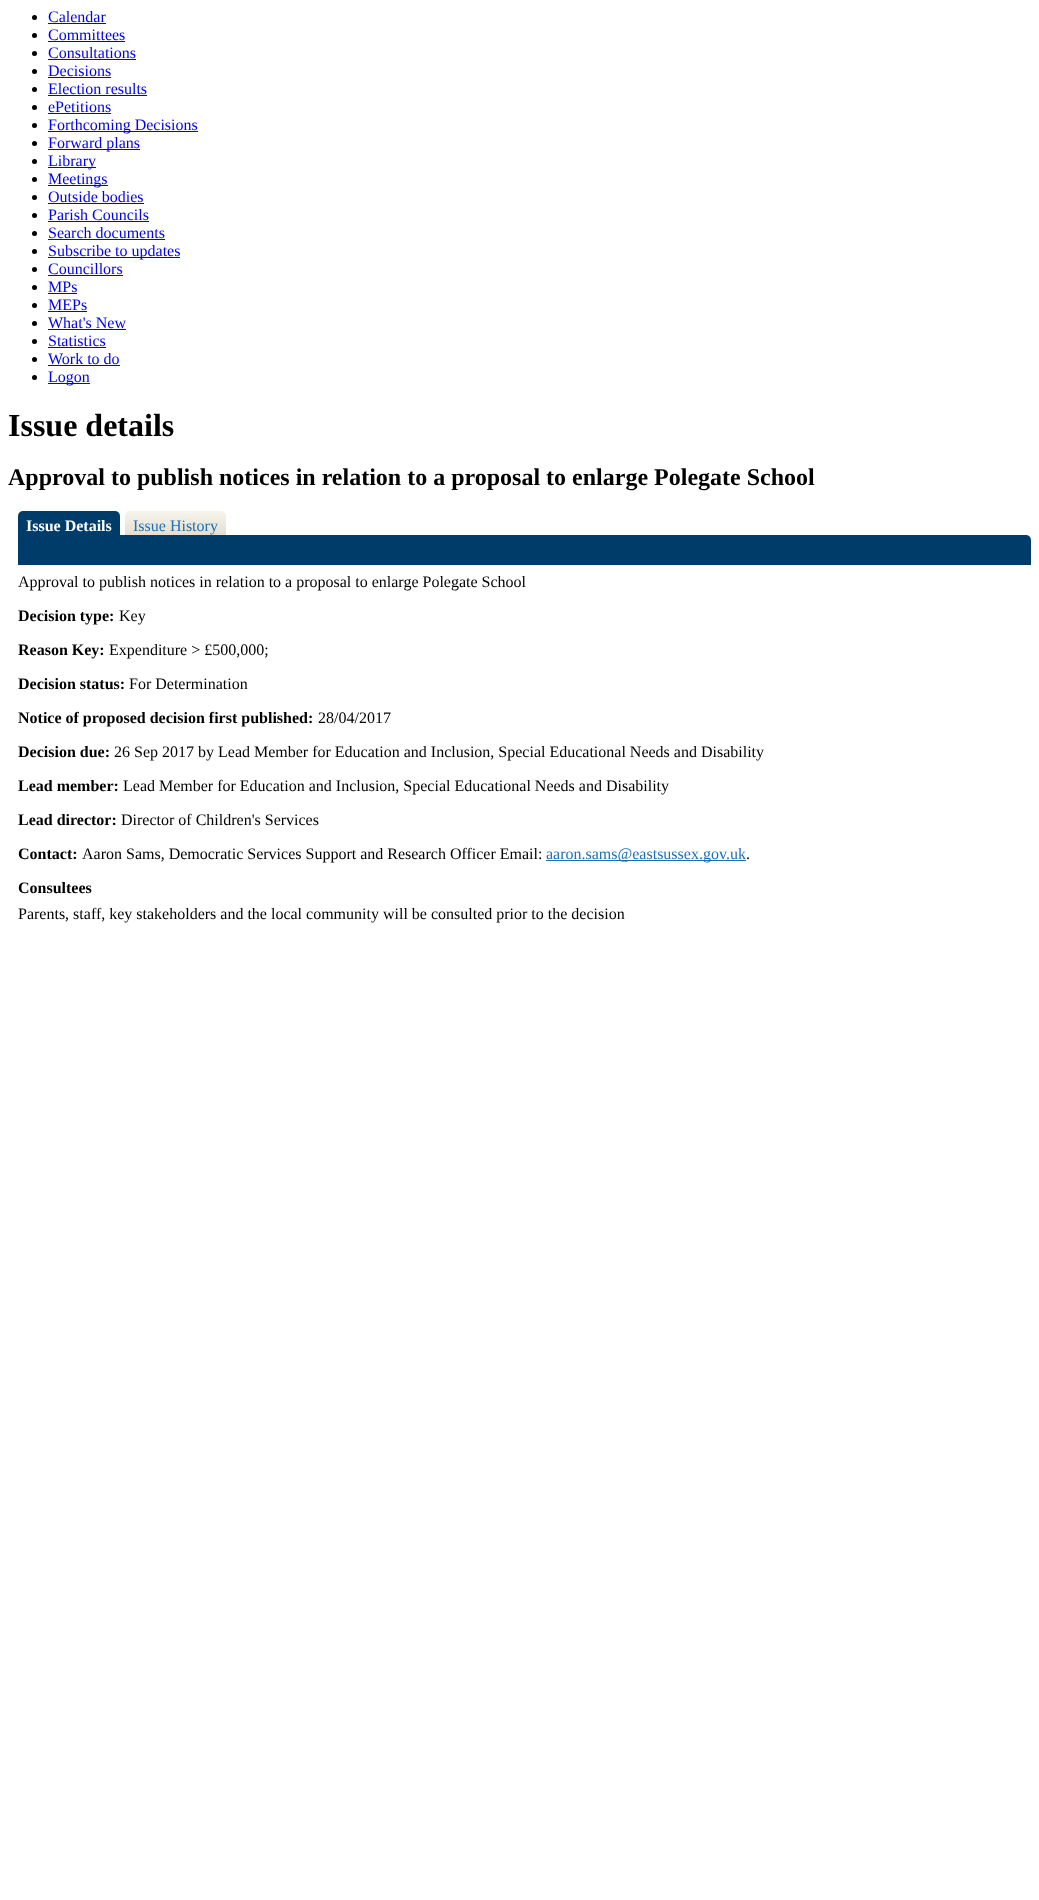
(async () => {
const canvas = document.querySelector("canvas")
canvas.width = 1039
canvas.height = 1900
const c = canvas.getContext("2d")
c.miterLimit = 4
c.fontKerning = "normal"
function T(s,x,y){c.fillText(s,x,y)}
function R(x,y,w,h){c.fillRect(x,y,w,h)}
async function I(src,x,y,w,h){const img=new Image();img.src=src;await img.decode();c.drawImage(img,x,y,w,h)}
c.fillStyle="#fff"
R(0,0,1039,1900)
c.fillStyle="#000"
c.beginPath()
c.arc(34.5,17.5,2.5,0,7)
c.fill()
c.font="16px Liberation Serif"
c.fillStyle="#00e"
T("Calendar",48,22)
R(48,23,58,1)
c.fillStyle="#000"
c.beginPath()
c.arc(34.5,35.5,2.5,0,7)
c.fill()
c.fillStyle="#00e"
T("Committees",48,40)
R(48,41,77,1)
c.fillStyle="#000"
c.beginPath()
c.arc(34.5,53.5,2.5,0,7)
c.fill()
c.fillStyle="#00e"
T("Consultations",48,58)
R(48,59,88,1)
c.fillStyle="#000"
c.beginPath()
c.arc(34.5,71.5,2.5,0,7)
c.fill()
c.fillStyle="#00e"
T("Decisions",48,76)
R(48,77,63,1)
c.fillStyle="#000"
c.beginPath()
c.arc(34.5,89.5,2.5,0,7)
c.fill()
c.fillStyle="#00e"
T("Election results",48,94)
R(48,95,99,1)
c.fillStyle="#000"
c.beginPath()
c.arc(34.5,107.5,2.5,0,7)
c.fill()
c.fillStyle="#00e"
T("ePetitions",48,112)
R(48,113,63,1)
c.fillStyle="#000"
c.beginPath()
c.arc(34.5,125.5,2.5,0,7)
c.fill()
c.fillStyle="#00e"
R(48,131,150,1)
T("Forthcoming Decisions",48,130)
c.fillStyle="#000"
c.beginPath()
c.arc(34.5,143.5,2.5,0,7)
c.fill()
c.fillStyle="#00e"
R(48,149,92,1)
T("Forward plans",48,148)
c.fillStyle="#000"
c.beginPath()
c.arc(34.5,161.5,2.5,0,7)
c.fill()
c.fillStyle="#00e"
R(48,167,48,1)
T("Library",48,166)
c.fillStyle="#000"
c.beginPath()
c.arc(34.5,179.5,2.5,0,7)
c.fill()
c.fillStyle="#00e"
R(48,185,60,1)
T("Meetings",48,184)
c.fillStyle="#000"
c.beginPath()
c.arc(34.5,197.5,2.5,0,7)
c.fill()
c.fillStyle="#00e"
T("Outside bodies",48,202)
R(48,203,96,1)
c.fillStyle="#000"
c.beginPath()
c.arc(34.5,215.5,2.5,0,7)
c.fill()
c.fillStyle="#00e"
T("Parish Councils",48,220)
R(48,221,101,1)
c.fillStyle="#000"
c.beginPath()
c.arc(34.5,233.5,2.5,0,7)
c.fill()
c.fillStyle="#00e"
T("Search documents",48,238)
R(48,239,117,1)
c.fillStyle="#000"
c.beginPath()
c.arc(34.5,251.5,2.5,0,7)
c.fill()
c.fillStyle="#00e"
R(48,257,132,1)
T("Subscribe to updates",48,256)
c.fillStyle="#000"
c.beginPath()
c.arc(34.5,269.5,2.5,0,7)
c.fill()
c.fillStyle="#00e"
T("Councillors",48,274)
R(48,275,75,1)
c.fillStyle="#000"
c.beginPath()
c.arc(34.5,287.5,2.5,0,7)
c.fill()
c.fillStyle="#00e"
T("MPs",48,292)
R(48,293,29,1)
c.fillStyle="#000"
c.beginPath()
c.arc(34.5,305.5,2.5,0,7)
c.fill()
c.fillStyle="#00e"
T("MEPs",48,310)
R(48,311,39,1)
c.fillStyle="#000"
c.beginPath()
c.arc(34.5,323.5,2.5,0,7)
c.fill()
c.fillStyle="#00e"
T("What's New",48,328)
R(48,329,78,1)
c.fillStyle="#000"
c.beginPath()
c.arc(34.5,341.5,2.5,0,7)
c.fill()
c.fillStyle="#00e"
T("Statistics",48,346)
R(48,347,58,1)
c.fillStyle="#000"
c.beginPath()
c.arc(34.5,359.5,2.5,0,7)
c.fill()
c.fillStyle="#00e"
T("Work to do",48,364)
R(48,365,72,1)
c.fillStyle="#000"
c.beginPath()
c.arc(34.5,377.5,2.5,0,7)
c.fill()
c.fillStyle="#00e"
R(48,383,42,1)
T("Logon",48,382)
c.font="bold 32px Liberation Serif"
c.fillStyle="#000"
T("Issue details",8,436)
c.font="bold 24px Liberation Serif"
T("Approval to publish notices in relation to a proposal to enlarge Polegate School",8,485)
c.fillStyle="#003c69"
c.beginPath()
c.roundRect(18,511,102,24,[5,5,0,0])
c.fill()
c.font="bold 16px Liberation Serif"
c.fillStyle="#fff"
T("Issue Details",26,531)
await I("1.png",125,511,101,24)
c.font="16px Liberation Serif"
c.fillStyle="#1d70b8"
T("Issue History",133,531)
c.fillStyle="#003c69"
c.beginPath()
c.roundRect(18,535,1013,30,[0,5,0,0])
c.fill()
c.fillStyle="#000"
T("Approval to publish notices in relation to a proposal to enlarge Polegate School",18,587)
c.font="bold 16px Liberation Serif"
T("Decision type:",18,621)
c.font="16px Liberation Serif"
T("Key",119,621)
c.font="bold 16px Liberation Serif"
T("Reason Key:",18,655)
c.font="16px Liberation Serif"
T("Expenditure > £500,000;",109,655)
c.font="bold 16px Liberation Serif"
T("Decision status:",18,689)
c.font="16px Liberation Serif"
T("For Determination",129,689)
c.font="bold 16px Liberation Serif"
T("Notice of proposed decision first published:",18,723)
c.font="16px Liberation Serif"
T("28/04/2017",318,723)
c.font="bold 16px Liberation Serif"
T("Decision due:",18,757)
c.font="16px Liberation Serif"
T("26 Sep 2017 by Lead Member for Education and Inclusion, Special Educational Needs and Disability",114,757)
c.font="bold 16px Liberation Serif"
T("Lead member:",18,791)
c.font="16px Liberation Serif"
T("Lead Member for Education and Inclusion, Special Educational Needs and Disability",123,791)
c.font="bold 16px Liberation Serif"
T("Lead director:",18,825)
c.font="16px Liberation Serif"
T("Director of Children's Services",121,825)
c.font="bold 16px Liberation Serif"
T("Contact:",18,859)
c.font="16px Liberation Serif"
T("Aaron Sams, Democratic Services Support and Research Officer Email:",82,859)
c.fillStyle="#1d70b8"
R(546,860,200,1)
T("aaron.sams@eastsussex.gov.uk",546,859)
c.fillStyle="#000"
T(".",746,859)
c.font="bold 16px Liberation Serif"
T("Consultees",18,893)
c.font="16px Liberation Serif"
T("Parents, staff, key stakeholders and the local community will be consulted prior to the decision",18,919)
})()
